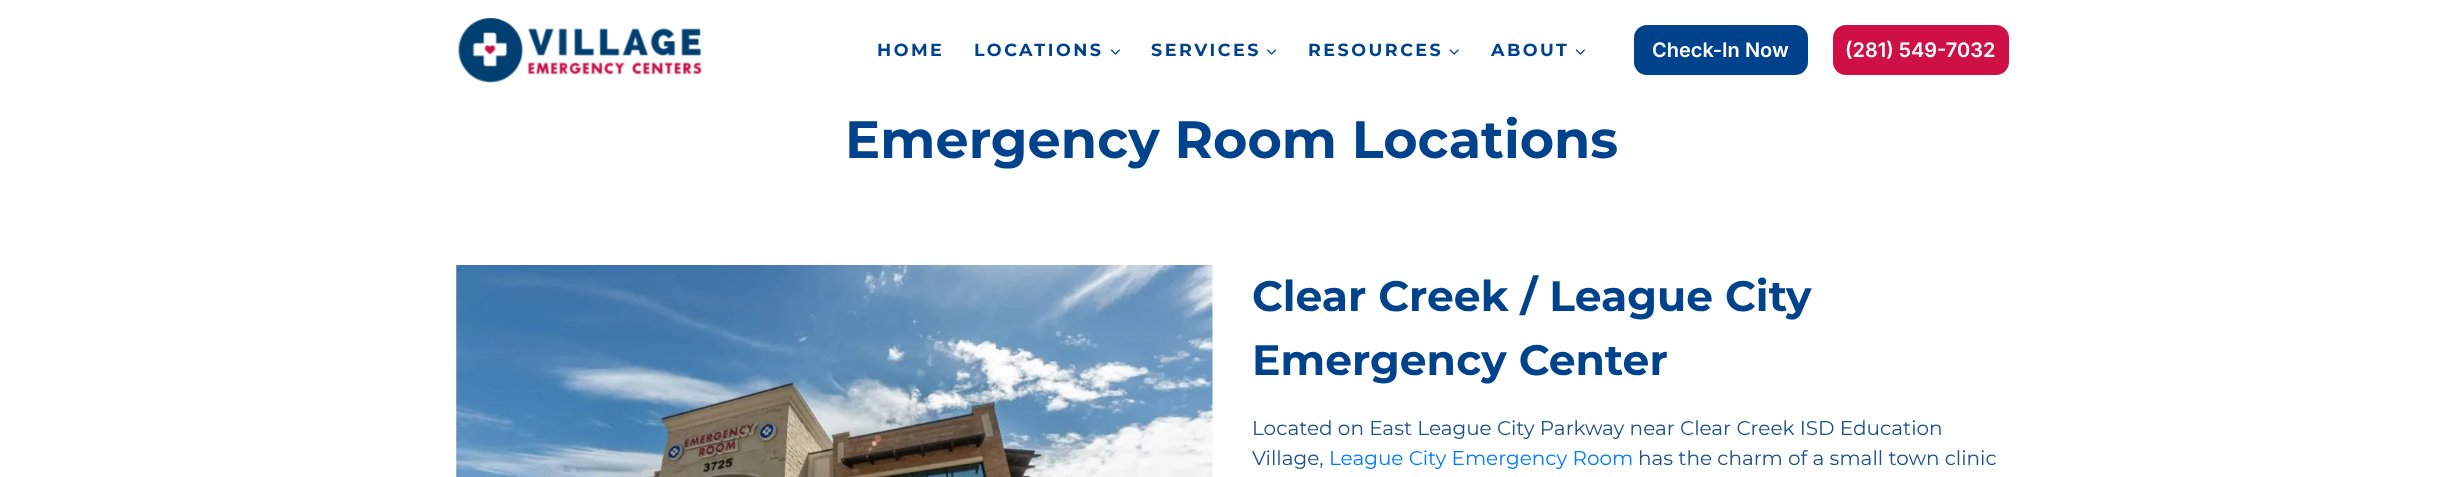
(async () => {
const canvas = document.querySelector("canvas")
canvas.width = 2463
canvas.height = 477
const c = canvas.getContext("2d")
c.miterLimit = 4
c.fontKerning = "normal"
function T(s,x,y){c.fillText(s,x,y)}
function R(x,y,w,h){c.fillRect(x,y,w,h)}
function Q(x,y,w,h,r){c.beginPath();c.roundRect(x,y,w,h,r);c.fill()}
async function I(src,x,y,w,h){const img=new Image();img.src=src;await img.decode();c.drawImage(img,x,y,w,h)}
c.fillStyle="#fff"
R(0,0,2463,477)
await I("1.png",458,17,244,66)
c.letterSpacing="2.5px"
c.font="bold 17.5px Montserrat"
c.fillStyle="#00428b"
T("HOME",877,56)
T("LOCATIONS",974,56)
await I("2.png",1110,49,10,6)
T("SERVICES",1151,56)
await I("3.png",1267,49,10,6)
T("RESOURCES",1308,56)
await I("4.png",1449,49,10,6)
T("ABOUT",1491,56)
await I("2.png",1575,49,10,6)
Q(1634,25,174,50,13)
c.letterSpacing="0px"
c.font="600 20px Inter"
c.fillStyle="#fff"
T("Check-In Now",1652,57)
c.fillStyle="#cf1046"
Q(1833,25,176,50,13)
c.fillStyle="#fff"
T("(281) 549-7032",1845,57)
c.font="bold 52.5px Montserrat"
c.fillStyle="#00428b"
T("Emergency Room Locations",845,158)
await I("5.png",456,265,757,212)
c.font="bold 42.5px Montserrat"
T("Clear Creek / League City",1252,311)
T("Emergency Center",1252,375)
c.font="20px Montserrat"
c.fillStyle="#19508d"
T("Located on East League City Parkway near Clear Creek ISD Education",1252,435)
T("Village,",1252,465)
c.fillStyle="#007bff"
T("League City Emergency Room",1329,465)
c.fillStyle="#19508d"
T("has the charm of a small town clinic",1638,465)
})()
